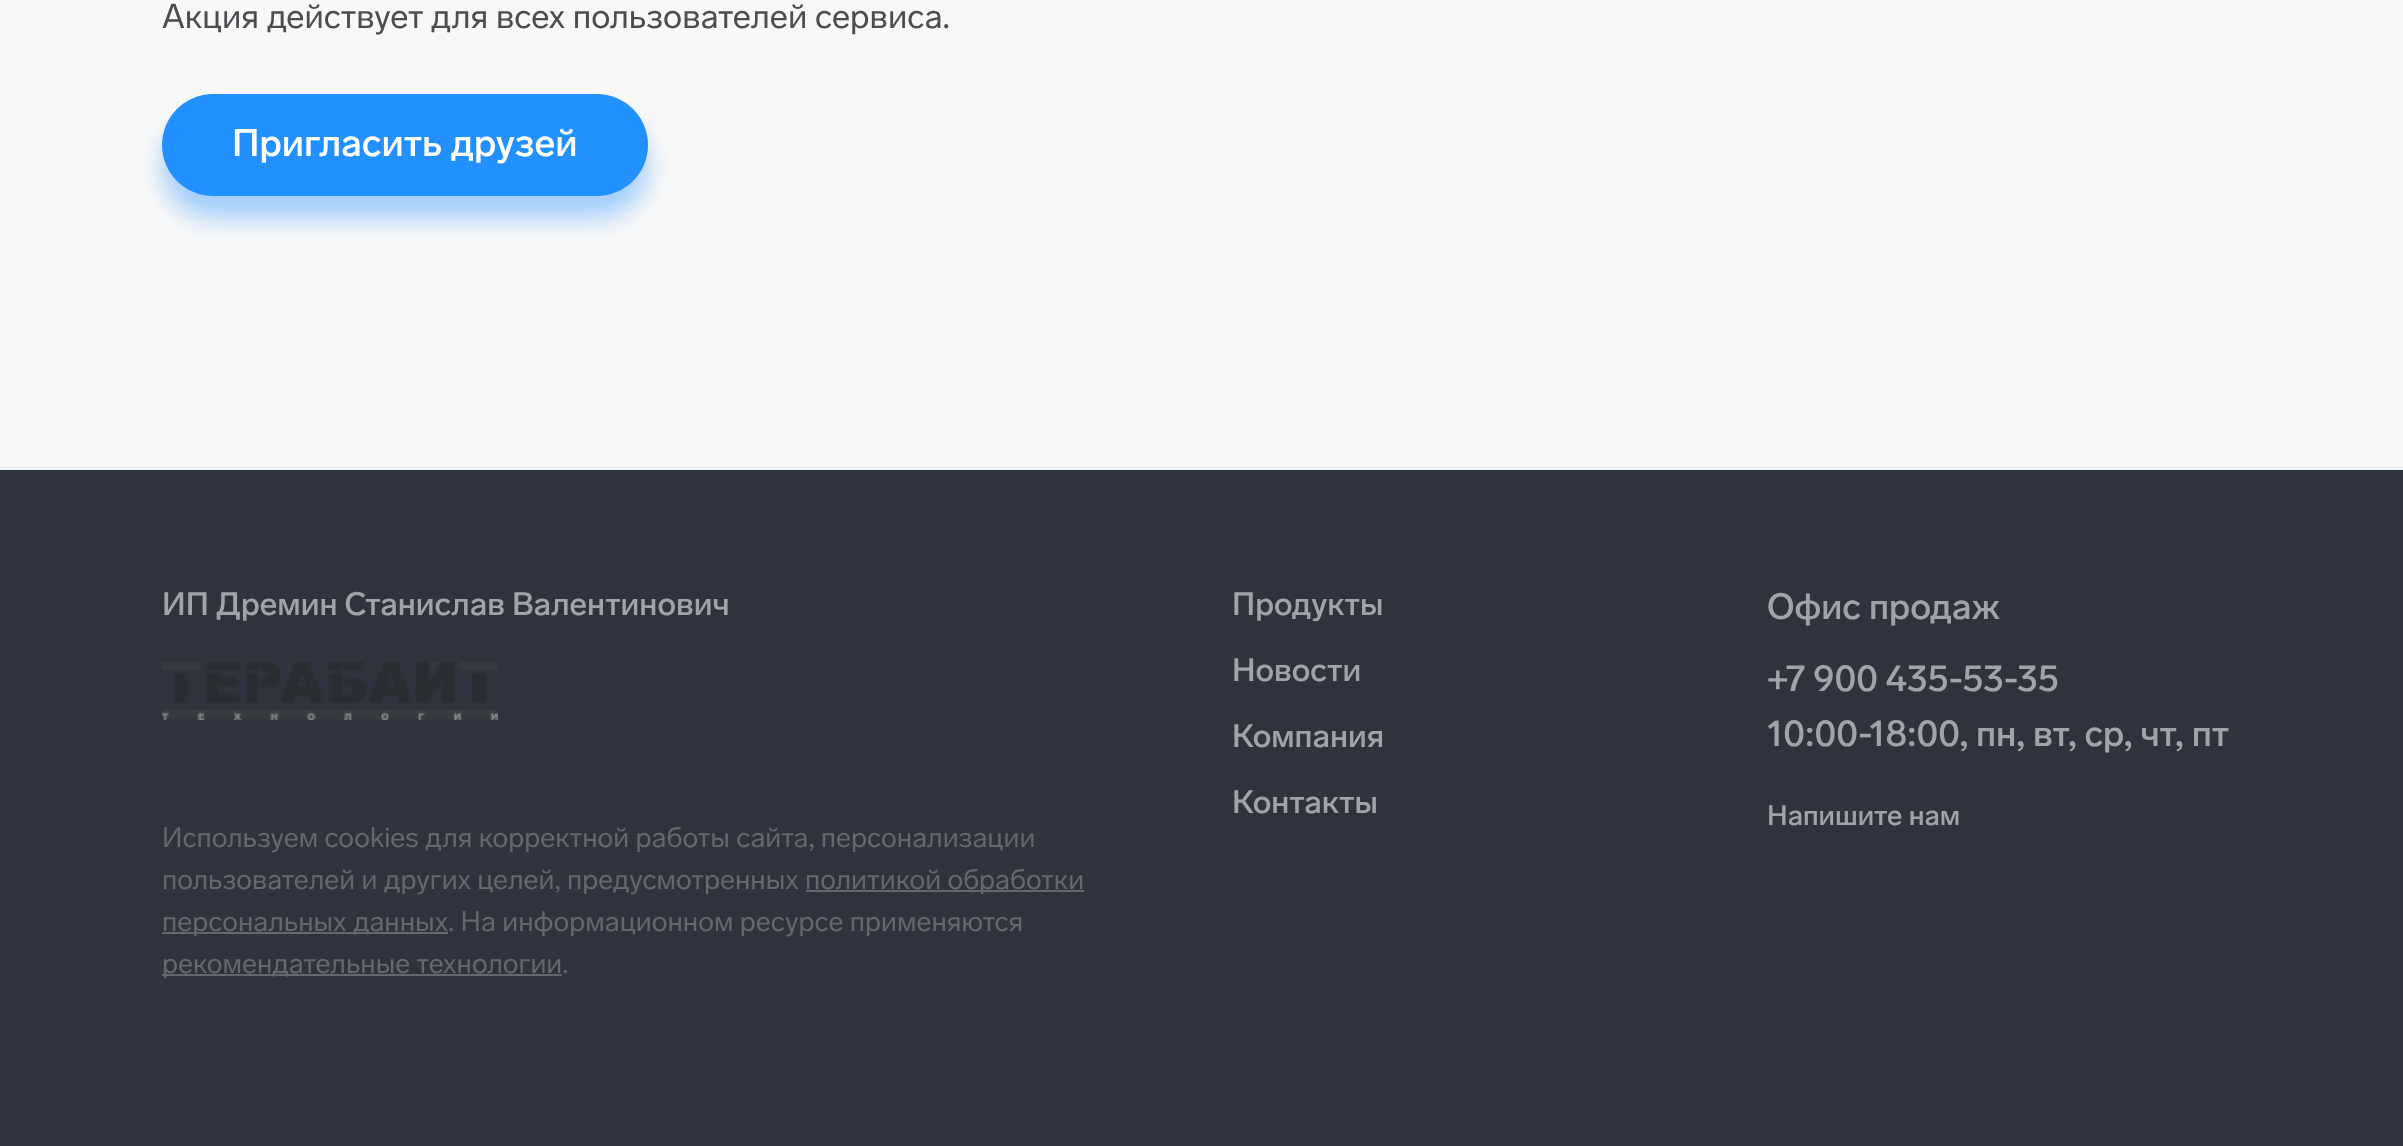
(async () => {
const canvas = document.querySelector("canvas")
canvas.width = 2403
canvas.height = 1146
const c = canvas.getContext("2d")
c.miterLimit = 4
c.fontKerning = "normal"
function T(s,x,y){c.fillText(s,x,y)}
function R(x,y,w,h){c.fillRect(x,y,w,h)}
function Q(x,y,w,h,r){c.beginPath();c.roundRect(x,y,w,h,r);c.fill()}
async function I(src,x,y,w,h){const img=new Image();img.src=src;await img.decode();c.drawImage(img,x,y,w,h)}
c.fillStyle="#2c353d"
R(0,0,2403,1146)
c.fillStyle="#f2f2f2"
R(0,466,2403,4)
c.fillStyle="#f8f8f8"
R(0,0,2403,466)
c.font="34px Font"
c.fillStyle="#4b4e51"
T("Акция действует для всех пользователей сервиса.",162,28)
c.fillStyle="#2291ff66"
c.filter="blur(12px)"
c.beginPath()
c.roundRect(162,116,486,102,51)
c.fill()
c.filter="none"
c.fillStyle="#2291ff"
Q(162,94,486,102,51)
c.font="500 38px Font"
c.fillStyle="#fff"
T("Пригласить друзей",232,156)
c.font="500 32px Font"
c.fillStyle="#a0a4a8"
T("ИП Дремин Станислав Валентинович",162,615)
await I("1.png",162,662,336,58)
c.font="28px Font"
c.fillStyle="#62686d"
T("Используем cookies для корректной работы сайта, персонализации",162,847)
T("пользователей и других целей, предусмотренных",162,889)
R(806,890,278,2)
T("политикой обработки",805,889)
R(162,932,286,2)
T("персональных данных. На информационном ресурсе применяются",162,931)
R(162,974,400,2)
T("рекомендательные технологии.",162,973)
c.font="500 32px Font"
c.fillStyle="#a0a4a8"
T("Продукты",1232,615)
T("Новости",1232,681)
T("Компания",1232,747)
T("Контакты",1232,813)
c.font="500 36px Font"
T("Офис продаж",1767,619)
T("+7 900 435-53-35",1767,691)
T("10:00-18:00, пн, вт, ср, чт, пт",1767,746)
c.font="500 28px Font"
T("Напишите нам",1767,825)
})()
